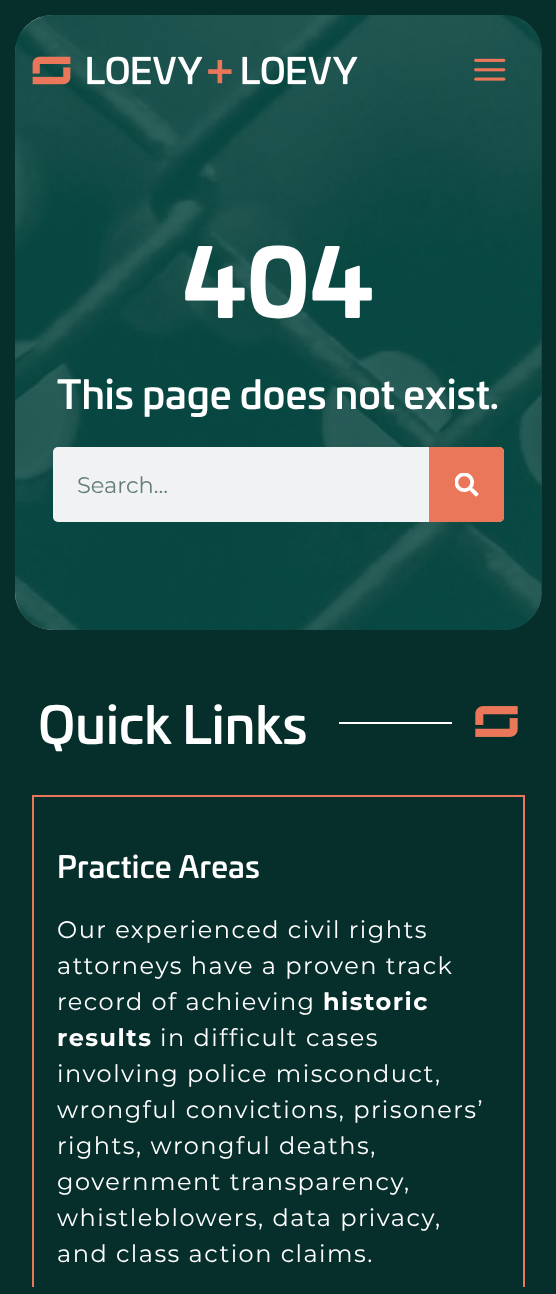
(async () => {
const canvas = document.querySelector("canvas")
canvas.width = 556
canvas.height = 1294
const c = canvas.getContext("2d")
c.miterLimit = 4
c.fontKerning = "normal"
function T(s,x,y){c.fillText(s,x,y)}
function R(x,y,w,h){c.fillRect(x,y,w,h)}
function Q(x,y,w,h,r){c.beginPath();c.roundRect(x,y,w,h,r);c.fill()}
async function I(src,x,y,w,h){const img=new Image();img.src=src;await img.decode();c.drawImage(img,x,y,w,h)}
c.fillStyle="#062f2b"
R(0,0,556,1294)
c.fillStyle="#094741"
Q(15,15,527,615,38)
await I("3.png",15,15,527,615)
c.fillStyle="#094741d9"
Q(15,15,527,615,38)
await I("1.png",32,56,326,29)
await I("2.png",474,58,32,23)
c.font="bold 93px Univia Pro"
c.fillStyle="#fff"
T("404",183,318)
c.font="500 39px Univia Pro"
T("This page does not exist.",57,409)
c.fillStyle="#f1f2f3"
Q(53,447,451,75,5)
c.font="22.5px Montserrat"
c.fillStyle="#647d7b"
T("Search...",77,493)
c.fillStyle="#ea7759"
c.beginPath()
c.roundRect(429,447,75,75,[0,5,5,0])
c.fill()
await I("4.png",455,473,24,24)
c.font="500 51px Univia Pro"
c.fillStyle="#fff"
T("Quick Links",38,744)
R(339,722,113,2)
await I("5.png",475,706,43,31)
c.strokeStyle="#ea7759"
c.lineWidth=2
c.strokeRect(33,796,491,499)
c.letterSpacing="0.25px"
c.font="500 30px Univia Pro"
T("Practice Areas",57,878)
c.letterSpacing="1.5px"
c.font="24px Montserrat"
T("Our experienced civil rights",57,938)
T("attorneys have a proven track",57,974)
T("record of achieving",57,1010)
c.font="bold 24px Montserrat"
T("historic",323,1010)
T("results",57,1046)
c.font="24px Montserrat"
T("in difficult cases",160,1046)
T("involving police misconduct,",57,1082)
T("wrongful convictions, prisoners’",57,1118)
T("rights, wrongful deaths,",57,1154)
T("government transparency,",57,1190)
T("whistleblowers, data privacy,",57,1226)
T("and class action claims.",57,1262)
c.fillStyle="#062f2b"
R(32,1287,493,7)
})()
